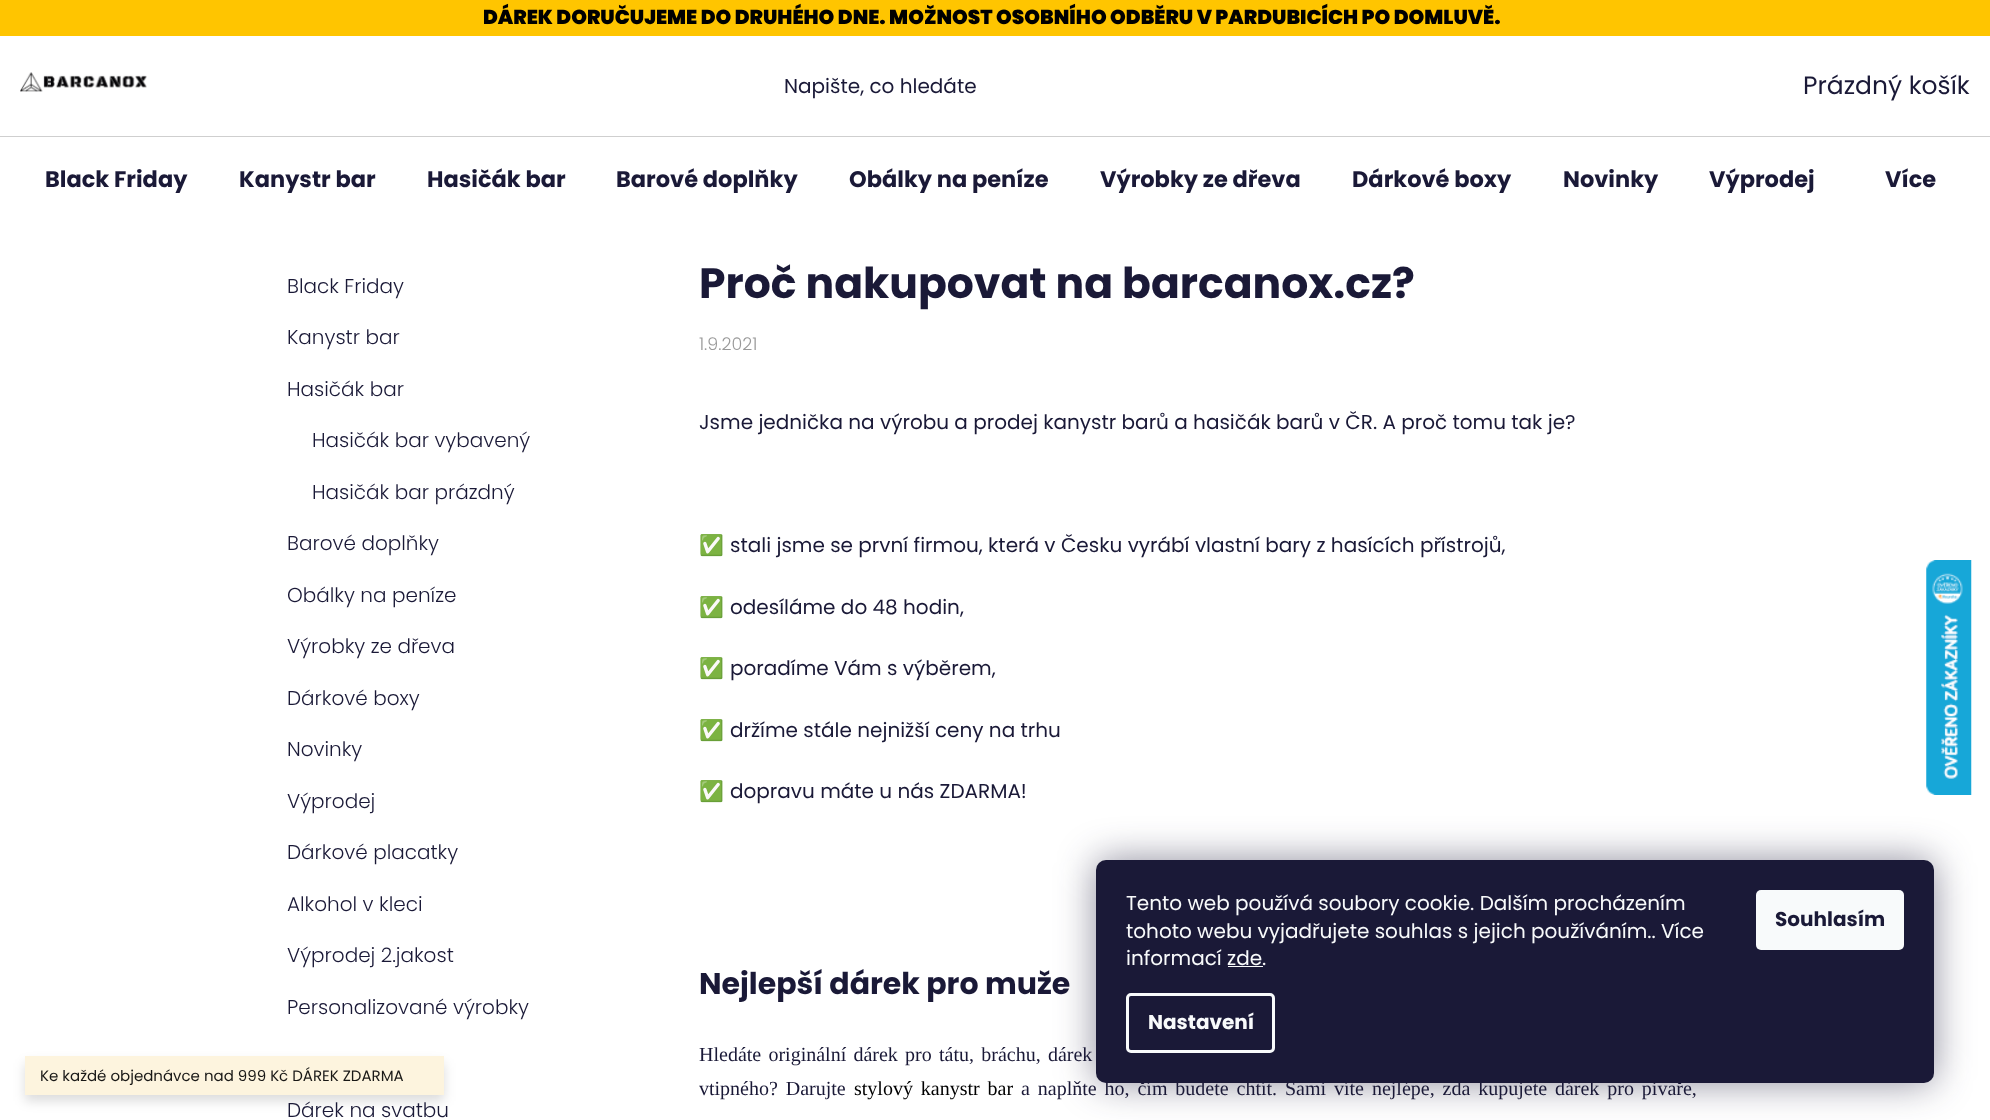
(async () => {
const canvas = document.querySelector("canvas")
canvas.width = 1990
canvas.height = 1120
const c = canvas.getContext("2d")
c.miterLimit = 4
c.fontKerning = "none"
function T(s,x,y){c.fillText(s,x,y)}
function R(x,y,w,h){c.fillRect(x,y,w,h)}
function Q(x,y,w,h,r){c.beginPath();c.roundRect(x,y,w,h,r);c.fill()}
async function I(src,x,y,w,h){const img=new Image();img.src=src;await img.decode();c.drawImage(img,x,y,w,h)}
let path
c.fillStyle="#fff"
R(0,0,1990,1120)
c.fillStyle="#ffc500"
R(0,0,1990,36)
c.font="900 20px Poppins"
c.fillStyle="#000"
T("DÁREK DORUČUJEME DO DRUHÉHO DNE. MOŽNOST OSOBNÍHO ODBĚRU V PARDUBICÍCH PO DOMLUVĚ.",483,24)
await I("1.png",20,72,127,20)
c.font="20px Poppins"
c.fillStyle="#1a1937"
T("Napište, co hledáte",784,93)
c.font="25px Poppins"
T("Prázdný košík",1803,94)
c.fillStyle="#cfcfcf"
R(0,136,1990,1)
c.font="bold 22.5px Poppins"
c.fillStyle="#1a1937"
T("Black Friday",45,187)
T("Kanystr bar",239,187)
T("Hasičák bar",427,187)
T("Barové doplňky",616,187)
T("Obálky na peníze",849,187)
T("Výrobky ze dřeva",1100,187)
T("Dárkové boxy",1352,187)
T("Novinky",1563,187)
T("Výprodej",1709,187)
T("Více",1885,187)
c.save()
path = new Path2D("M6 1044h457v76h-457zm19 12h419v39h-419z")
c.clip(path,"evenodd")
c.fillStyle="#00000024"
c.filter="blur(6px)"
c.beginPath()
c.rect(25,1063,419,38)
c.fill()
c.filter="none"
c.restore()
c.fillStyle="#fdf3dae6"
R(25,1056,419,39)
c.font="15px Poppins"
c.fillStyle="#191816"
T("Ke každé objednávce nad 999 Kč DÁREK ZDARMA",40,1081)
c.font="300 20px Poppins"
c.fillStyle="#1a1937"
T("Black Friday",287,293)
T("Kanystr bar",287,344)
T("Hasičák bar",287,396)
T("Hasičák bar vybavený",312,447)
T("Hasičák bar prázdný",312,499)
T("Barové doplňky",287,550)
T("Obálky na peníze",287,602)
T("Výrobky ze dřeva",287,653)
T("Dárkové boxy",287,705)
T("Novinky",287,756)
T("Výprodej",287,808)
T("Dárkové placatky",287,859)
T("Alkohol v kleci",287,911)
T("Výprodej 2.jakost",287,962)
T("Personalizované výrobky",287,1014)
T("Dárek na svatbu",287,1117)
c.font="bold 42.5px Poppins"
T("Proč nakupovat na barcanox.cz?",699,298)
c.font="300 17.5px Poppins"
c.fillStyle="#999"
T("1.9.2021",699,350)
c.font="20px Poppins"
c.fillStyle="#1a1937"
T("Jsme jednička na výrobu a prodej kanystr barů a hasičák barů v ČR. A proč tomu tak je?",699,429)
c.font="20px Noto Color Emoji"
T("✅",699,552)
c.font="20px Poppins"
T("stali jsme se první firmou, která v Česku vyrábí vlastní bary z hasících přístrojů,",730,552)
c.font="20px Noto Color Emoji"
T("✅",699,614)
c.font="20px Poppins"
T("odesíláme do 48 hodin,",730,614)
c.font="20px Noto Color Emoji"
T("✅",699,675)
c.font="20px Poppins"
T("poradíme Vám s výběrem,",730,675)
c.font="20px Noto Color Emoji"
T("✅",699,737)
c.font="20px Poppins"
T("držíme stále nejnižší ceny na trhu",730,737)
c.font="20px Noto Color Emoji"
T("✅",699,798)
c.font="20px Poppins"
T("dopravu máte u nás ZDARMA!",730,798)
c.font="bold 30px Poppins"
T("Nejlepší dárek pro muže",699,994)
c.wordSpacing="2.25px"
c.font="20px Liberation Serif"
T("Hledáte originální dárek pro tátu, bráchu, dárek",699,1061)
c.wordSpacing="2.9px"
T("vtipného? Darujte",699,1095)
c.fillStyle="#000"
T("stylový kanystr bar",854,1095)
c.fillStyle="#1a1937"
T("a naplňte ho, čím budete chtít. Sami víte nejlépe, zda kupujete dárek pro pivaře,",1021,1095)
await I("2.png",1926,560,46,235)
c.fillStyle="#1b193980"
c.filter="blur(19px)"
c.beginPath()
c.roundRect(1096,860,838,223,10)
c.fill()
c.filter="none"
c.fillStyle="#1a1937"
Q(1096,860,838,223,10)
c.wordSpacing="0px"
c.font="20px Poppins"
c.fillStyle="#f8fafb"
T("Tento web používá soubory cookie. Dalším procházením",1126,910)
T("tohoto webu vyjadřujete souhlas s jejich používáním.. Více",1126,938)
T("informací zde.",1126,965)
R(1228,966,35,1)
c.beginPath()
c.roundRect(1127.5,994.5,146,57,3.5)
c.strokeStyle="#f8fafb"
c.lineWidth=3
c.stroke()
c.font="bold 20px Poppins"
T("Nastavení",1148,1029)
Q(1756,890,148,60,5)
c.fillStyle="#1a1937"
T("Souhlasím",1775,926)
})()
